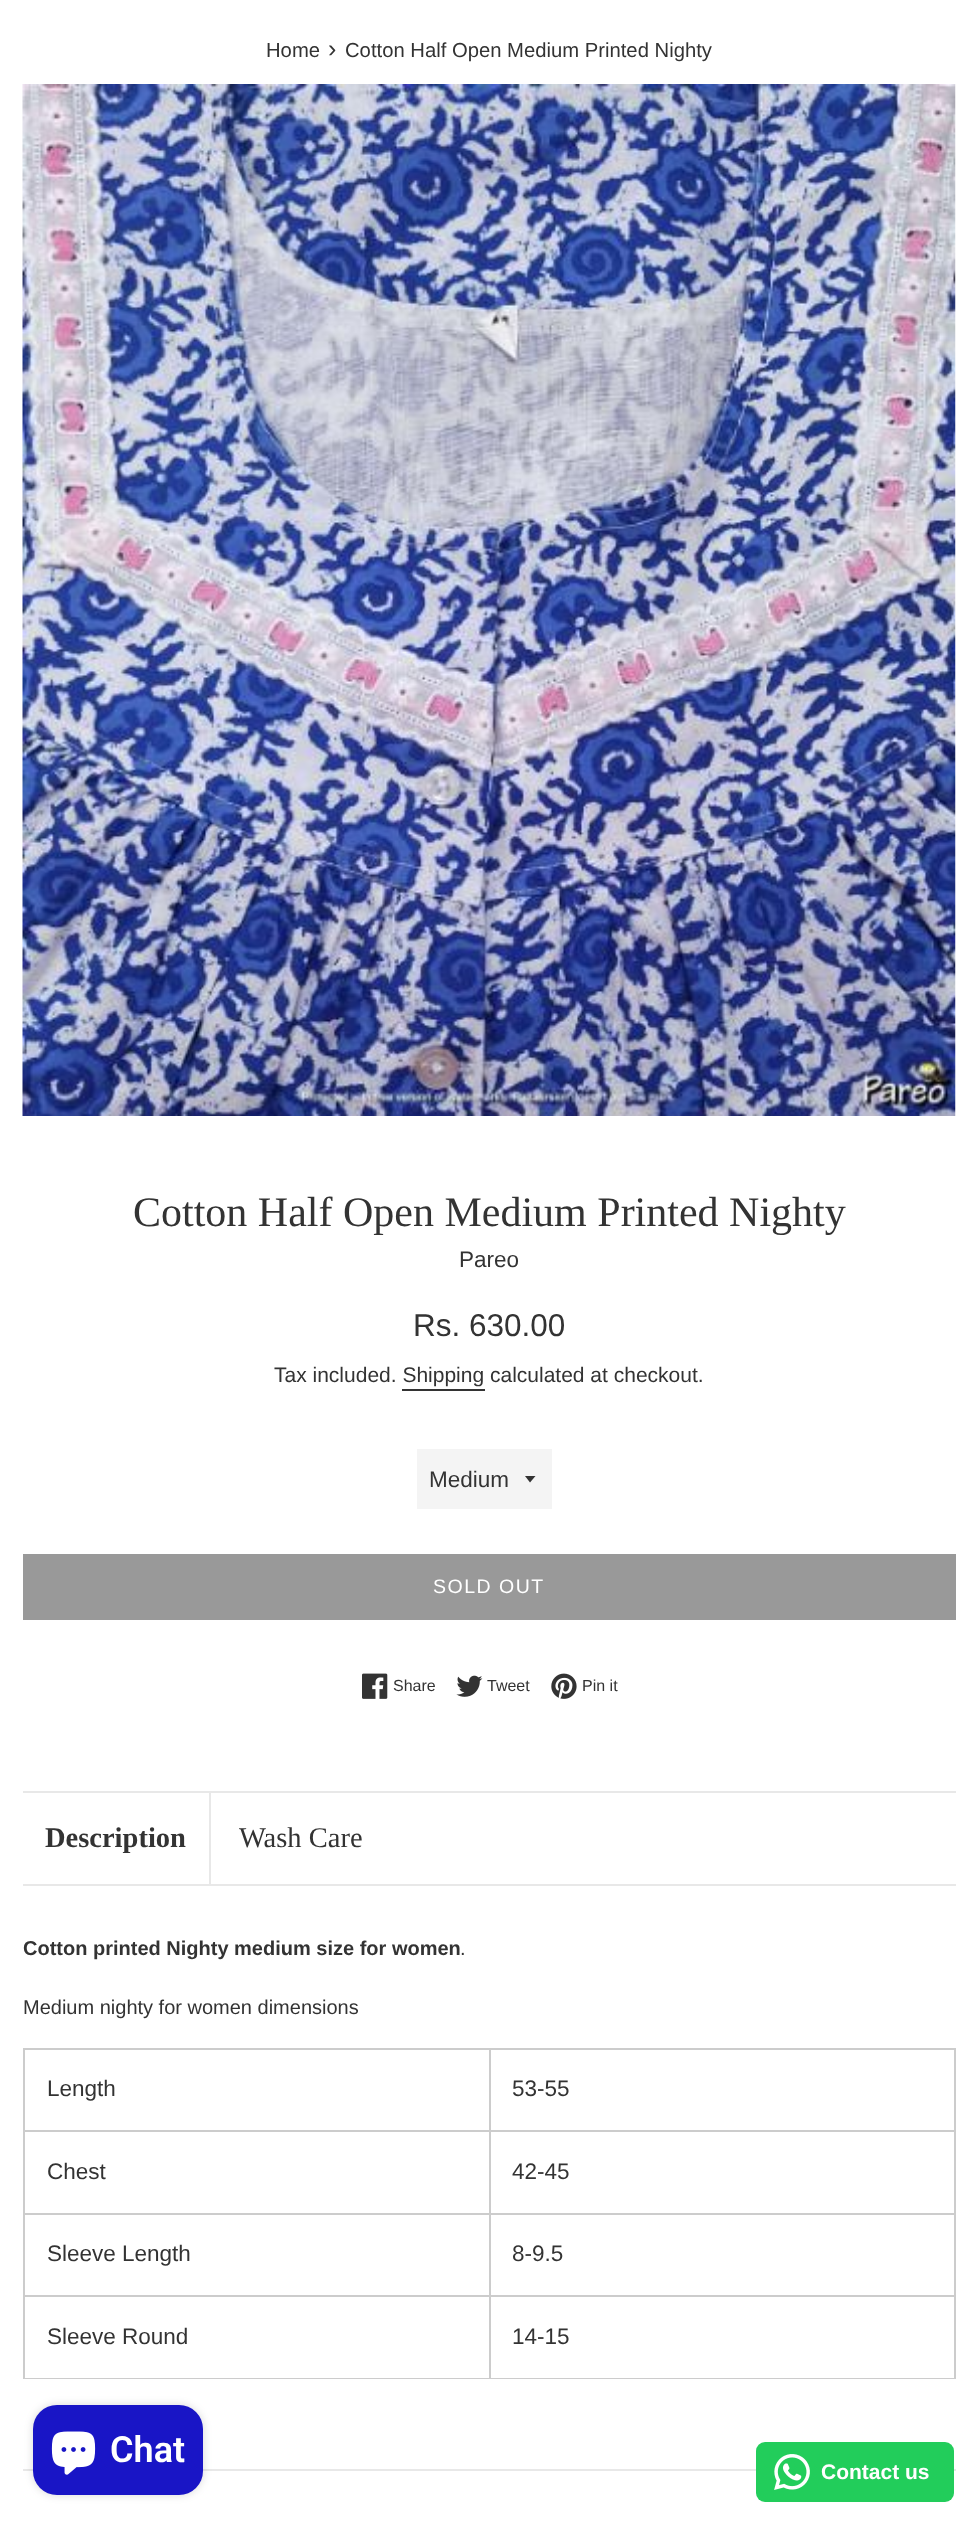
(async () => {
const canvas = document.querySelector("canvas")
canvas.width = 977
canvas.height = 2525
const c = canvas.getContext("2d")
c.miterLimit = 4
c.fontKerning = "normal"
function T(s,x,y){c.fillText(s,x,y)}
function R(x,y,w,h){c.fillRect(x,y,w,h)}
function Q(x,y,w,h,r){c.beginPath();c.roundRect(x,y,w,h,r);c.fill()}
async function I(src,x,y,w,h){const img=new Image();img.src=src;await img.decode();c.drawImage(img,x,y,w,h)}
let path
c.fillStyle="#fff"
R(0,0,977,2525)
c.font="20.25px Liberation Sans"
c.fillStyle="#333"
T("Home",266,57)
c.font="25px Liberation Sans"
T("›",328,57)
c.font="20.25px Liberation Sans"
T("Cotton Half Open Medium Printed Nighty",345,57)
await I("1.png",22,84,934,1032)
c.font="42px Liberation Serif"
T("Cotton Half Open Medium Printed Nighty",133,1226)
c.font="22.5px Liberation Sans"
T("Pareo",459,1267)
c.font="31.5px Liberation Sans"
T("Rs. 630.00",413,1336)
c.font="21px Liberation Sans"
T("Tax included. Shipping calculated at checkout.",274,1382)
R(402,1389,83,2)
c.fillStyle="#f4f4f4"
R(417,1449,135,60)
c.fillStyle="#333"
path = new Path2D("M525 1476l5 6.5l5.5-6.5z")
c.fill(path)
c.font="22.5px Liberation Sans"
T("Medium",429,1487)
c.fillStyle="#999"
R(23,1554,933,66)
c.letterSpacing="1.5px"
c.font="19.5px Liberation Sans"
c.fillStyle="#fff"
T("SOLD OUT",433,1593)
await I("2.png",362,1673,26,26)
c.letterSpacing="0px"
c.font="16px Liberation Sans"
c.fillStyle="#333"
T("Share",393,1691)
await I("3.png",456,1675,27,22)
T("Tweet",487,1691)
await I("4.png",551,1673,26,26)
T("Pin it",582,1691)
c.fillStyle="#e8e8e8"
R(23,1791,933,2)
R(23,1884,933,2)
R(209,1793,2,91)
c.font="bold 28.5px Liberation Serif"
c.fillStyle="#333"
T("Description",45,1847)
c.font="28.5px Liberation Serif"
T("Wash Care",239,1847)
c.font="bold 20px Liberation Sans"
T("Cotton printed Nighty medium size for women",23,1955)
c.font="20px Liberation Sans"
T(".",460,1955)
T("Medium nighty for women dimensions",23,2014)
c.fillStyle="#ccc"
R(489,2048,467,2)
R(489,2130,467,2)
R(489,2213,467,2)
R(489,2295,467,2)
R(954,2295,2,84)
R(489,2378,467,1)
R(489,2295,2,84)
R(23,2295,468,2)
R(489,2213,2,84)
R(23,2213,468,2)
R(489,2130,2,84)
R(23,2130,468,2)
R(489,2048,2,84)
R(23,2048,468,2)
R(23,2378,468,1)
R(23,2295,2,84)
R(23,2213,2,84)
R(23,2130,2,84)
R(23,2048,2,84)
c.font="22.5px Liberation Sans"
c.fillStyle="#333"
T("Length",47,2096)
c.fillStyle="#ccc"
R(954,2213,2,84)
R(954,2130,2,84)
R(954,2048,2,84)
c.fillStyle="#333"
T("53-55",512,2096)
T("Chest",47,2179)
T("42-45",512,2179)
T("Sleeve Length",47,2261)
T("8-9.5",512,2261)
T("Sleeve Round",47,2344)
T("14-15",512,2344)
c.fillStyle="#e8e8e8"
R(23,2469,933,2)
c.fillStyle="#00000026"
c.filter="blur(4px)"
c.beginPath()
c.roundRect(33,2405,170,90,24)
c.fill()
c.filter="none"
c.fillStyle="#1915c6"
Q(33,2405,170,90,24)
await I("5.png",51,2431,45,44)
c.font="600 36px Roboto"
c.fillStyle="#fff"
T("Chat",110,2462)
c.fillStyle="#22cd5b"
Q(756,2442,198,60,9)
await I("6.png",774,2454,36,36)
c.font="bold 21px Liberation Sans"
c.fillStyle="#fff"
T("Contact us",821,2479)
})()
